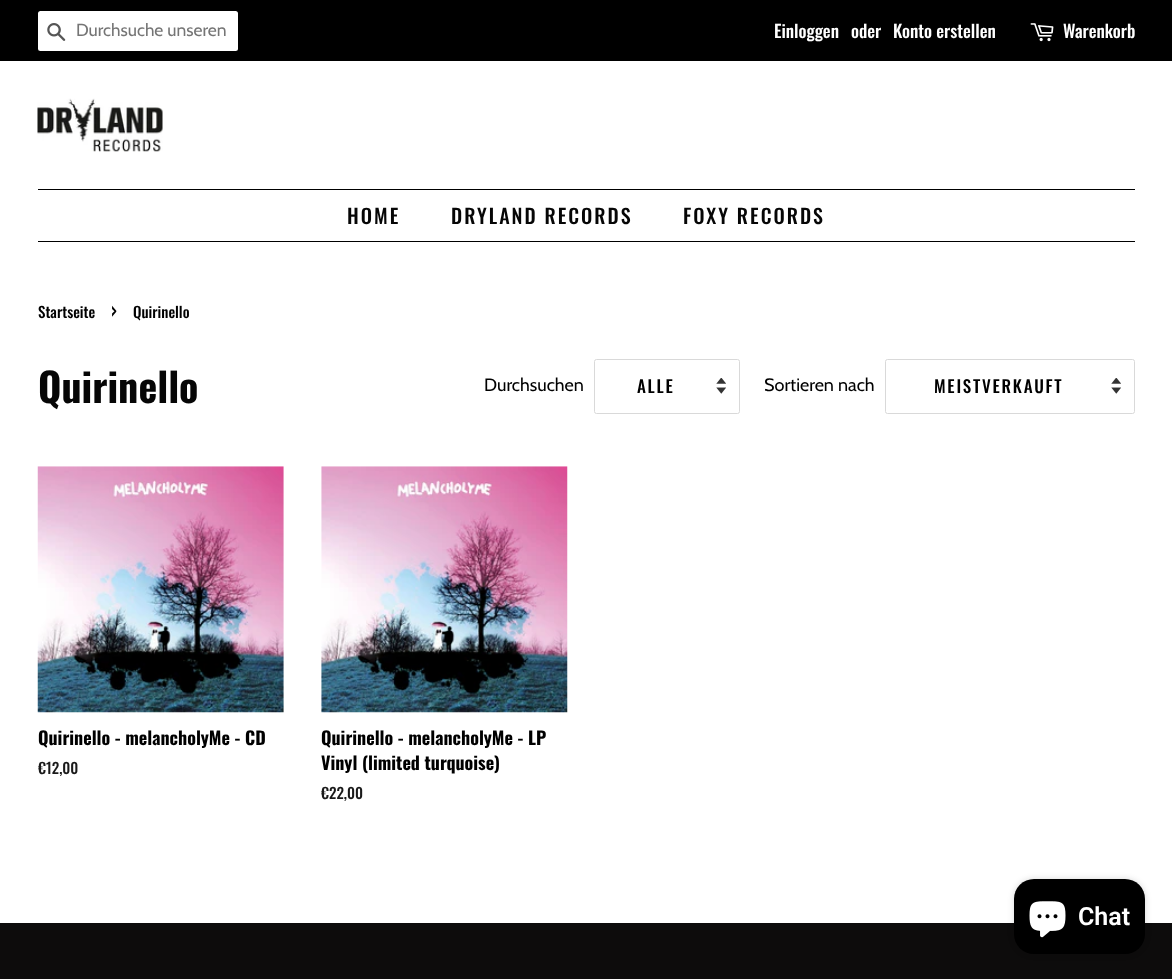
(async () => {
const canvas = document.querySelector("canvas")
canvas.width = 1172
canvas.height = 979
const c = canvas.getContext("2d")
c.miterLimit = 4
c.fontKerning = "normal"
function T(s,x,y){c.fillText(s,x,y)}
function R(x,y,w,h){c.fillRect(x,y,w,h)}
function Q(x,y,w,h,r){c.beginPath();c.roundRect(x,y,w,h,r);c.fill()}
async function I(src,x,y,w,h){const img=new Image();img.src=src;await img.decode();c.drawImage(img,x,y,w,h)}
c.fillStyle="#fff"
R(0,0,1172,979)
c.fillStyle="#000"
R(0,0,1172,61)
c.fillStyle="#fff"
Q(38,11,200,40,2.5)
await I("1.png",47,23,19,18)
c.font="17.5px Cabin"
c.fillStyle="#757575"
T("Durchsuche unseren",76,36)
c.font="500 17.5px Oswald"
c.fillStyle="#fff"
T("Einloggen",774,38)
T("oder",851,38)
T("Konto erstellen",893,38)
await I("2.png",1030,23,24,19)
T("Warenkorb",1063,38)
await I("3.png",37,98,126,54)
c.fillStyle="#000"
R(38,189,1097,1)
R(38,241,1097,1)
c.letterSpacing="2px"
c.font="500 20px Oswald"
c.fillStyle="#060606"
T("HOME",347,224)
T("DRYLAND RECORDS",451,224)
T("FOXY RECORDS",683,224)
c.letterSpacing="0px"
c.font="500 15px Oswald"
c.fillStyle="#000"
T("Startseite",38,318)
c.font="500 21px Oswald"
T("›",111,318)
c.font="500 15px Oswald"
T("Quirinello",133,318)
c.font="bold 40px Oswald"
c.fillStyle="#060606"
T("Quirinello",38,403)
c.font="18px Cabin"
c.fillStyle="#000"
T("Durchsuchen",484,391)
await I("4.png",716,378,10,16)
c.beginPath()
c.roundRect(594.5,359.5,145,54,2)
c.strokeStyle="#d9d9d9"
c.stroke()
c.letterSpacing="1.75px"
c.font="500 17px Oswald"
T("ALLE",637,393)
c.letterSpacing="0px"
c.font="18px Cabin"
T("Sortieren nach",764,391)
await I("4.png",1111,378,10,16)
c.beginPath()
c.roundRect(885.5,359.5,249,54,2)
c.stroke()
c.letterSpacing="1.75px"
c.font="500 17px Oswald"
T("MEISTVERKAUFT",934,393)
await I("5.png",37,466,247,247)
c.letterSpacing="0px"
c.font="bold 18px Oswald"
T("Quirinello - melancholyMe - CD",38,745)
c.font="500 15px Oswald"
c.fillStyle="#1a1a1a"
T("€12,00",38,774)
await I("6.png",321,466,247,247)
c.font="bold 18px Oswald"
c.fillStyle="#000"
T("Quirinello - melancholyMe - LP",321,745)
T("Vinyl (limited turquoise)",321,770)
c.font="500 15px Oswald"
c.fillStyle="#1a1a1a"
T("€22,00",321,799)
c.fillStyle="#0d0c0c"
R(0,923,1172,56)
c.fillStyle="#00000026"
c.filter="blur(3px)"
c.beginPath()
c.roundRect(1014,879,131,75,20)
c.fill()
c.filter="none"
c.fillStyle="#000"
Q(1014,879,131,75,20)
await I("7.png",1029,901,37,37)
c.font="600 25px Roboto"
c.fillStyle="#fff"
T("Chat",1078,925)
})()
